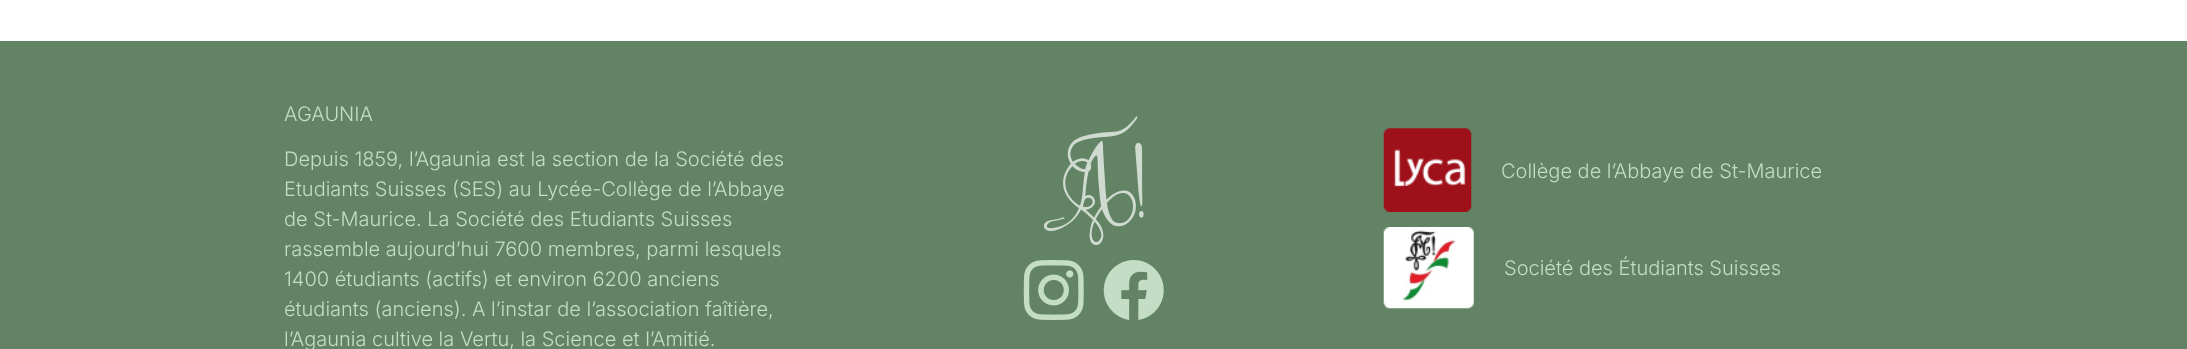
(async () => {
const canvas = document.querySelector("canvas")
canvas.width = 2187
canvas.height = 349
const c = canvas.getContext("2d")
c.miterLimit = 4
c.fontKerning = "normal"
function T(s,x,y){c.fillText(s,x,y)}
function R(x,y,w,h){c.fillRect(x,y,w,h)}
async function I(src,x,y,w,h){const img=new Image();img.src=src;await img.decode();c.drawImage(img,x,y,w,h)}
c.fillStyle="#fff"
R(0,0,2187,349)
c.fillStyle="#628464"
R(0,41,2187,308)
c.font="300 20px Inter"
c.fillStyle="#c4ddc5"
T("AGAUNIA",284,121)
T("Depuis 1859, l’Agaunia est la section de la Société des",284,166)
T("Etudiants Suisses (SES) au Lycée-Collège de l’Abbaye",284,196)
T("de St-Maurice. La Société des Etudiants Suisses",284,226)
T("rassemble aujourd’hui 7600 membres, parmi lesquels",284,256)
T("1400 étudiants (actifs) et environ 6200 anciens",284,286)
T("étudiants (anciens). A l’instar de l’association faîtière,",284,316)
T("l’Agaunia cultive la Vertu, la Science et l’Amitié.",284,346)
await I("1.png",1044,116,100,129)
await I("2.png",1023,260,61,60)
await I("3.png",1103,260,61,60)
await I("4.png",1383,128,89,84)
T("Collège de l’Abbaye de St-Maurice",1501,178)
await I("5.png",1383,227,91,82)
T("Société des Étudiants Suisses",1504,275)
})()
